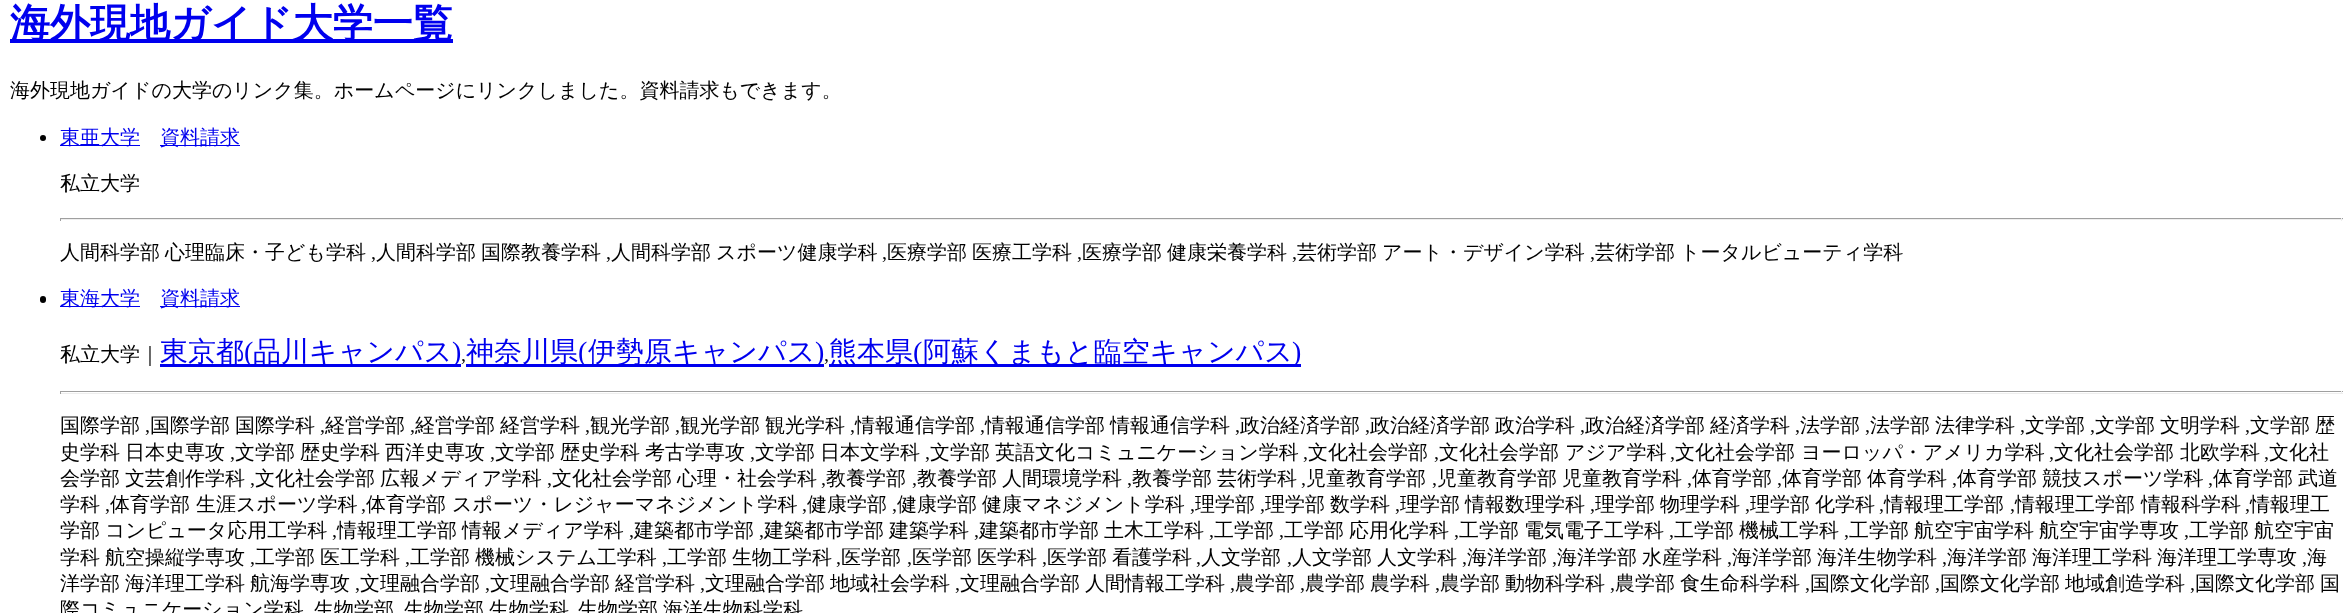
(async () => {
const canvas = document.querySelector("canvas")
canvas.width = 2352
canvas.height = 613
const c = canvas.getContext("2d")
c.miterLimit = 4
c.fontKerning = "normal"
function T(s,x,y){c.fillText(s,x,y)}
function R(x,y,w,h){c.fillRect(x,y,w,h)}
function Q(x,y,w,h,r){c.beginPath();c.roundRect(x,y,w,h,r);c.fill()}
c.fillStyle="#fff"
R(0,0,2352,613)
c.fillStyle="#00e"
R(10,39,443,4)
c.font="bold 40px WenQuanYi Zen Hei"
T("海外現地ガイド大学一覧",10,37)
c.font="500 20px WenQuanYi Zen Hei"
c.fillStyle="#000"
T("海外現地ガイドの大学のリンク集。ホームページにリンクしました。資料請求もできます。",10,97)
c.beginPath()
c.arc(43,138,3,0,7)
c.fill()
c.fillStyle="#00e"
R(60,145,80,1)
T("東亜大学",60,144)
R(160,145,80,1)
T("資料請求",160,144)
c.fillStyle="#000"
T("私立大学",60,190)
c.fillStyle="#9f9f9f"
R(60,218,2283,1)
c.fillStyle="#eee"
R(2341,218,1,3)
R(60,219,2283,1)
c.fillStyle="#9f9f9f"
R(60,218,1,3)
c.wordSpacing="-1px"
c.fillStyle="#000"
T("人間科学部 心理臨床・子ども学科",60,259)
c.wordSpacing="0px"
c.font="20px Liberation Serif"
T(",",371,259)
c.wordSpacing="-1px"
c.font="500 20px WenQuanYi Zen Hei"
T("人間科学部 国際教養学科",376,259)
c.wordSpacing="0px"
c.font="20px Liberation Serif"
T(",",606,259)
c.wordSpacing="-1px"
c.font="500 20px WenQuanYi Zen Hei"
T("人間科学部 スポーツ健康学科",611,259)
c.wordSpacing="0px"
c.font="20px Liberation Serif"
T(",",882,259)
c.wordSpacing="-1px"
c.font="500 20px WenQuanYi Zen Hei"
T("医療学部 医療工学科",887,259)
c.wordSpacing="0px"
c.font="20px Liberation Serif"
T(",",1077,259)
c.wordSpacing="-1px"
c.font="500 20px WenQuanYi Zen Hei"
T("医療学部 健康栄養学科",1082,259)
c.wordSpacing="0px"
c.font="20px Liberation Serif"
T(",",1292,259)
c.wordSpacing="-1px"
c.font="500 20px WenQuanYi Zen Hei"
T("芸術学部 アート・デザイン学科",1297,259)
c.wordSpacing="0px"
c.font="20px Liberation Serif"
T(",",1590,259)
c.wordSpacing="-1px"
c.font="500 20px WenQuanYi Zen Hei"
T("芸術学部 トータルビューティ学科",1595,259)
Q(40,296,6,7,3)
c.fillStyle="#00e"
R(60,306,80,1)
c.wordSpacing="0px"
T("東海大学",60,305)
R(160,306,80,1)
T("資料請求",160,305)
c.fillStyle="#000"
T("私立大学｜",60,361)
c.fillStyle="#00e"
R(160,364,301,3)
c.font="500 28px WenQuanYi Zen Hei"
T("東京都",160,361)
c.font="28px Liberation Serif"
T("(",244,361)
c.font="500 28px WenQuanYi Zen Hei"
T("品川キャンパス",253,361)
c.font="28px Liberation Serif"
T(")",452,361)
c.font="20px Liberation Serif"
c.fillStyle="#000"
T(",",461,361)
c.fillStyle="#00e"
R(466,364,358,3)
c.font="500 28px WenQuanYi Zen Hei"
T("神奈川県",466,361)
c.font="28px Liberation Serif"
T("(",578,361)
c.font="500 28px WenQuanYi Zen Hei"
T("伊勢原キャンパス",588,361)
c.font="28px Liberation Serif"
T(")",815,361)
c.font="20px Liberation Serif"
c.fillStyle="#000"
T(",",824,361)
c.fillStyle="#00e"
R(829,364,472,3)
c.font="500 28px WenQuanYi Zen Hei"
T("熊本県",829,361)
c.font="28px Liberation Serif"
T("(",913,361)
c.font="500 28px WenQuanYi Zen Hei"
T("阿蘇くまもと臨空キャンパス",923,361)
c.font="28px Liberation Serif"
T(")",1292,361)
c.fillStyle="#9f9f9f"
R(60,391,2283,1)
c.fillStyle="#eee"
R(2341,391,1,3)
R(60,393,2283,1)
c.fillStyle="#9f9f9f"
R(60,391,1,3)
c.font="500 20px WenQuanYi Zen Hei"
c.fillStyle="#000"
T("国際学部",60,432)
c.font="20px Liberation Serif"
T(",",145,432)
c.wordSpacing="-1px"
c.font="500 20px WenQuanYi Zen Hei"
T("国際学部 国際学科",150,432)
c.wordSpacing="0px"
c.font="20px Liberation Serif"
T(",",320,432)
c.font="500 20px WenQuanYi Zen Hei"
T("経営学部",325,432)
c.font="20px Liberation Serif"
T(",",410,432)
c.wordSpacing="-1px"
c.font="500 20px WenQuanYi Zen Hei"
T("経営学部 経営学科",415,432)
c.wordSpacing="0px"
c.font="20px Liberation Serif"
T(",",585,432)
c.font="500 20px WenQuanYi Zen Hei"
T("観光学部",590,432)
c.font="20px Liberation Serif"
T(",",675,432)
c.wordSpacing="-1px"
c.font="500 20px WenQuanYi Zen Hei"
T("観光学部 観光学科",680,432)
c.wordSpacing="0px"
c.font="20px Liberation Serif"
T(",",850,432)
c.font="500 20px WenQuanYi Zen Hei"
T("情報通信学部",855,432)
c.font="20px Liberation Serif"
T(",",980,432)
c.wordSpacing="-1px"
c.font="500 20px WenQuanYi Zen Hei"
T("情報通信学部 情報通信学科",985,432)
c.wordSpacing="0px"
c.font="20px Liberation Serif"
T(",",1235,432)
c.font="500 20px WenQuanYi Zen Hei"
T("政治経済学部",1240,432)
c.font="20px Liberation Serif"
T(",",1365,432)
c.wordSpacing="-1px"
c.font="500 20px WenQuanYi Zen Hei"
T("政治経済学部 政治学科",1370,432)
c.wordSpacing="0px"
c.font="20px Liberation Serif"
T(",",1580,432)
c.wordSpacing="-1px"
c.font="500 20px WenQuanYi Zen Hei"
T("政治経済学部 経済学科",1585,432)
c.wordSpacing="0px"
c.font="20px Liberation Serif"
T(",",1795,432)
c.font="500 20px WenQuanYi Zen Hei"
T("法学部",1800,432)
c.font="20px Liberation Serif"
T(",",1865,432)
c.wordSpacing="-1px"
c.font="500 20px WenQuanYi Zen Hei"
T("法学部 法律学科",1870,432)
c.wordSpacing="0px"
c.font="20px Liberation Serif"
T(",",2020,432)
c.font="500 20px WenQuanYi Zen Hei"
T("文学部",2025,432)
c.font="20px Liberation Serif"
T(",",2090,432)
c.wordSpacing="-1px"
c.font="500 20px WenQuanYi Zen Hei"
T("文学部 文明学科",2095,432)
c.wordSpacing="0px"
c.font="20px Liberation Serif"
T(",",2245,432)
c.wordSpacing="-1px"
c.font="500 20px WenQuanYi Zen Hei"
T("文学部 歴",2250,432)
T("史学科 日本史専攻",60,459)
c.wordSpacing="0px"
c.font="20px Liberation Serif"
T(",",230,459)
c.wordSpacing="-1px"
c.font="500 20px WenQuanYi Zen Hei"
T("文学部 歴史学科 西洋史専攻",235,459)
c.wordSpacing="0px"
c.font="20px Liberation Serif"
T(",",490,459)
c.wordSpacing="-1px"
c.font="500 20px WenQuanYi Zen Hei"
T("文学部 歴史学科 考古学専攻",495,459)
c.wordSpacing="0px"
c.font="20px Liberation Serif"
T(",",750,459)
c.wordSpacing="-1px"
c.font="500 20px WenQuanYi Zen Hei"
T("文学部 日本文学科",755,459)
c.wordSpacing="0px"
c.font="20px Liberation Serif"
T(",",925,459)
c.wordSpacing="-1px"
c.font="500 20px WenQuanYi Zen Hei"
T("文学部 英語文化コミュニケーション学科",930,459)
c.wordSpacing="0px"
c.font="20px Liberation Serif"
T(",",1303,459)
c.font="500 20px WenQuanYi Zen Hei"
T("文化社会学部",1308,459)
c.font="20px Liberation Serif"
T(",",1434,459)
c.font="500 20px WenQuanYi Zen Hei"
T("文化社会学部 アジア学科",1439,459)
c.font="20px Liberation Serif"
T(",",1670,459)
c.font="500 20px WenQuanYi Zen Hei"
T("文化社会学部 ヨーロッパ・アメリカ学科",1675,459)
c.font="20px Liberation Serif"
T(",",2049,459)
c.font="500 20px WenQuanYi Zen Hei"
T("文化社会学部 北欧学科",2054,459)
c.font="20px Liberation Serif"
T(",",2264,459)
c.font="500 20px WenQuanYi Zen Hei"
T("文化社",2269,459)
c.wordSpacing="-1px"
T("会学部 文芸創作学科",60,485)
c.wordSpacing="0px"
c.font="20px Liberation Serif"
T(",",250,485)
c.wordSpacing="-1px"
c.font="500 20px WenQuanYi Zen Hei"
T("文化社会学部 広報メディア学科",255,485)
c.wordSpacing="0px"
c.font="20px Liberation Serif"
T(",",547,485)
c.wordSpacing="-1px"
c.font="500 20px WenQuanYi Zen Hei"
T("文化社会学部 心理・社会学科",552,485)
c.wordSpacing="0px"
c.font="20px Liberation Serif"
T(",",821,485)
c.font="500 20px WenQuanYi Zen Hei"
T("教養学部",826,485)
c.font="20px Liberation Serif"
T(",",912,485)
c.wordSpacing="-1px"
c.font="500 20px WenQuanYi Zen Hei"
T("教養学部 人間環境学科",917,485)
c.wordSpacing="0px"
c.font="20px Liberation Serif"
T(",",1127,485)
c.wordSpacing="-1px"
c.font="500 20px WenQuanYi Zen Hei"
T("教養学部 芸術学科",1132,485)
c.wordSpacing="0px"
c.font="20px Liberation Serif"
T(",",1301,485)
c.font="500 20px WenQuanYi Zen Hei"
T("児童教育学部",1306,485)
c.font="20px Liberation Serif"
T(",",1432,485)
c.wordSpacing="-1px"
c.font="500 20px WenQuanYi Zen Hei"
T("児童教育学部 児童教育学科",1437,485)
c.wordSpacing="0px"
c.font="20px Liberation Serif"
T(",",1687,485)
c.font="500 20px WenQuanYi Zen Hei"
T("体育学部",1692,485)
c.font="20px Liberation Serif"
T(",",1777,485)
c.wordSpacing="-1px"
c.font="500 20px WenQuanYi Zen Hei"
T("体育学部 体育学科",1782,485)
c.wordSpacing="0px"
c.font="20px Liberation Serif"
T(",",1952,485)
c.wordSpacing="-1px"
c.font="500 20px WenQuanYi Zen Hei"
T("体育学部 競技スポーツ学科",1957,485)
c.wordSpacing="0px"
c.font="20px Liberation Serif"
T(",",2208,485)
c.wordSpacing="-1px"
c.font="500 20px WenQuanYi Zen Hei"
T("体育学部 武道",2213,485)
c.wordSpacing="0px"
T("学科",60,511)
c.font="20px Liberation Serif"
T(",",105,511)
c.font="500 20px WenQuanYi Zen Hei"
T("体育学部 生涯スポーツ学科",110,511)
c.font="20px Liberation Serif"
T(",",361,511)
c.font="500 20px WenQuanYi Zen Hei"
T("体育学部 スポーツ・レジャーマネジメント学科",366,511)
c.font="20px Liberation Serif"
T(",",802,511)
c.font="500 20px WenQuanYi Zen Hei"
T("健康学部",807,511)
c.font="20px Liberation Serif"
T(",",892,511)
c.wordSpacing="-1px"
c.font="500 20px WenQuanYi Zen Hei"
T("健康学部 健康マネジメント学科",897,511)
c.wordSpacing="0px"
c.font="20px Liberation Serif"
T(",",1190,511)
c.font="500 20px WenQuanYi Zen Hei"
T("理学部",1195,511)
c.font="20px Liberation Serif"
T(",",1260,511)
c.wordSpacing="-1px"
c.font="500 20px WenQuanYi Zen Hei"
T("理学部 数学科",1265,511)
c.wordSpacing="0px"
c.font="20px Liberation Serif"
T(",",1395,511)
c.wordSpacing="-1px"
c.font="500 20px WenQuanYi Zen Hei"
T("理学部 情報数理学科",1400,511)
c.wordSpacing="0px"
c.font="20px Liberation Serif"
T(",",1590,511)
c.wordSpacing="-1px"
c.font="500 20px WenQuanYi Zen Hei"
T("理学部 物理学科",1595,511)
c.wordSpacing="0px"
c.font="20px Liberation Serif"
T(",",1745,511)
c.wordSpacing="-1px"
c.font="500 20px WenQuanYi Zen Hei"
T("理学部 化学科",1750,511)
c.wordSpacing="0px"
c.font="20px Liberation Serif"
T(",",1879,511)
c.font="500 20px WenQuanYi Zen Hei"
T("情報理工学部",1884,511)
c.font="20px Liberation Serif"
T(",",2010,511)
c.font="500 20px WenQuanYi Zen Hei"
T("情報理工学部 情報科学科",2015,511)
c.font="20px Liberation Serif"
T(",",2245,511)
c.font="500 20px WenQuanYi Zen Hei"
T("情報理工",2250,511)
c.wordSpacing="-1px"
T("学部 コンピュータ応用工学科",60,537)
c.wordSpacing="0px"
c.font="20px Liberation Serif"
T(",",332,537)
c.wordSpacing="-1px"
c.font="500 20px WenQuanYi Zen Hei"
T("情報理工学部 情報メディア学科",337,537)
c.wordSpacing="0px"
c.font="20px Liberation Serif"
T(",",629,537)
c.font="500 20px WenQuanYi Zen Hei"
T("建築都市学部",634,537)
c.font="20px Liberation Serif"
T(",",759,537)
c.wordSpacing="-1px"
c.font="500 20px WenQuanYi Zen Hei"
T("建築都市学部 建築学科",764,537)
c.wordSpacing="0px"
c.font="20px Liberation Serif"
T(",",974,537)
c.wordSpacing="-1px"
c.font="500 20px WenQuanYi Zen Hei"
T("建築都市学部 土木工学科",979,537)
c.wordSpacing="0px"
c.font="20px Liberation Serif"
T(",",1209,537)
c.font="500 20px WenQuanYi Zen Hei"
T("工学部",1214,537)
c.font="20px Liberation Serif"
T(",",1279,537)
c.wordSpacing="-1px"
c.font="500 20px WenQuanYi Zen Hei"
T("工学部 応用化学科",1284,537)
c.wordSpacing="0px"
c.font="20px Liberation Serif"
T(",",1454,537)
c.wordSpacing="-1px"
c.font="500 20px WenQuanYi Zen Hei"
T("工学部 電気電子工学科",1459,537)
c.wordSpacing="0px"
c.font="20px Liberation Serif"
T(",",1669,537)
c.wordSpacing="-1px"
c.font="500 20px WenQuanYi Zen Hei"
T("工学部 機械工学科",1674,537)
c.wordSpacing="0px"
c.font="20px Liberation Serif"
T(",",1844,537)
c.wordSpacing="-1px"
c.font="500 20px WenQuanYi Zen Hei"
T("工学部 航空宇宙学科 航空宇宙学専攻",1849,537)
c.wordSpacing="0px"
c.font="20px Liberation Serif"
T(",",2184,537)
c.wordSpacing="-1px"
c.font="500 20px WenQuanYi Zen Hei"
T("工学部 航空宇宙",2189,537)
T("学科 航空操縦学専攻",60,564)
c.wordSpacing="0px"
c.font="20px Liberation Serif"
T(",",250,564)
c.wordSpacing="-1px"
c.font="500 20px WenQuanYi Zen Hei"
T("工学部 医工学科",255,564)
c.wordSpacing="0px"
c.font="20px Liberation Serif"
T(",",405,564)
c.wordSpacing="-1px"
c.font="500 20px WenQuanYi Zen Hei"
T("工学部 機械システム工学科",410,564)
c.wordSpacing="0px"
c.font="20px Liberation Serif"
T(",",662,564)
c.wordSpacing="-1px"
c.font="500 20px WenQuanYi Zen Hei"
T("工学部 生物工学科",667,564)
c.wordSpacing="0px"
c.font="20px Liberation Serif"
T(",",836,564)
c.font="500 20px WenQuanYi Zen Hei"
T("医学部",841,564)
c.font="20px Liberation Serif"
T(",",907,564)
c.wordSpacing="-1px"
c.font="500 20px WenQuanYi Zen Hei"
T("医学部 医学科",912,564)
c.wordSpacing="0px"
c.font="20px Liberation Serif"
T(",",1042,564)
c.wordSpacing="-1px"
c.font="500 20px WenQuanYi Zen Hei"
T("医学部 看護学科",1047,564)
c.wordSpacing="0px"
c.font="20px Liberation Serif"
T(",",1196,564)
c.font="500 20px WenQuanYi Zen Hei"
T("人文学部",1201,564)
c.font="20px Liberation Serif"
T(",",1287,564)
c.wordSpacing="-1px"
c.font="500 20px WenQuanYi Zen Hei"
T("人文学部 人文学科",1292,564)
c.wordSpacing="0px"
c.font="20px Liberation Serif"
T(",",1462,564)
c.font="500 20px WenQuanYi Zen Hei"
T("海洋学部",1467,564)
c.font="20px Liberation Serif"
T(",",1552,564)
c.wordSpacing="-1px"
c.font="500 20px WenQuanYi Zen Hei"
T("海洋学部 水産学科",1557,564)
c.wordSpacing="0px"
c.font="20px Liberation Serif"
T(",",1727,564)
c.wordSpacing="-1px"
c.font="500 20px WenQuanYi Zen Hei"
T("海洋学部 海洋生物学科",1732,564)
c.wordSpacing="0px"
c.font="20px Liberation Serif"
T(",",1942,564)
c.wordSpacing="-1px"
c.font="500 20px WenQuanYi Zen Hei"
T("海洋学部 海洋理工学科 海洋理工学専攻",1947,564)
c.wordSpacing="0px"
c.font="20px Liberation Serif"
T(",",2302,564)
c.font="500 20px WenQuanYi Zen Hei"
T("海",2307,564)
c.wordSpacing="-1px"
T("洋学部 海洋理工学科 航海学専攻",60,590)
c.wordSpacing="0px"
c.font="20px Liberation Serif"
T(",",355,590)
c.font="500 20px WenQuanYi Zen Hei"
T("文理融合学部",360,590)
c.font="20px Liberation Serif"
T(",",485,590)
c.wordSpacing="-1px"
c.font="500 20px WenQuanYi Zen Hei"
T("文理融合学部 経営学科",490,590)
c.wordSpacing="0px"
c.font="20px Liberation Serif"
T(",",700,590)
c.wordSpacing="-1px"
c.font="500 20px WenQuanYi Zen Hei"
T("文理融合学部 地域社会学科",705,590)
c.wordSpacing="0px"
c.font="20px Liberation Serif"
T(",",955,590)
c.wordSpacing="-1px"
c.font="500 20px WenQuanYi Zen Hei"
T("文理融合学部 人間情報工学科",960,590)
c.wordSpacing="0px"
c.font="20px Liberation Serif"
T(",",1230,590)
c.font="500 20px WenQuanYi Zen Hei"
T("農学部",1235,590)
c.font="20px Liberation Serif"
T(",",1300,590)
c.wordSpacing="-1px"
c.font="500 20px WenQuanYi Zen Hei"
T("農学部 農学科",1305,590)
c.wordSpacing="0px"
c.font="20px Liberation Serif"
T(",",1435,590)
c.wordSpacing="-1px"
c.font="500 20px WenQuanYi Zen Hei"
T("農学部 動物科学科",1440,590)
c.wordSpacing="0px"
c.font="20px Liberation Serif"
T(",",1610,590)
c.wordSpacing="-1px"
c.font="500 20px WenQuanYi Zen Hei"
T("農学部 食生命科学科",1615,590)
c.wordSpacing="0px"
c.font="20px Liberation Serif"
T(",",1805,590)
c.font="500 20px WenQuanYi Zen Hei"
T("国際文化学部",1810,590)
c.font="20px Liberation Serif"
T(",",1935,590)
c.wordSpacing="-1px"
c.font="500 20px WenQuanYi Zen Hei"
T("国際文化学部 地域創造学科",1940,590)
c.wordSpacing="0px"
c.font="20px Liberation Serif"
T(",",2190,590)
c.wordSpacing="-1px"
c.font="500 20px WenQuanYi Zen Hei"
T("国際文化学部 国",2195,590)
c.wordSpacing="0px"
T("際コミュニケーション学科",60,616)
T("生物学部",314,616)
c.wordSpacing="-1px"
T("生物学部 生物学科",404,616)
T("生物学部 海洋生物科学科",578,616)
})()
